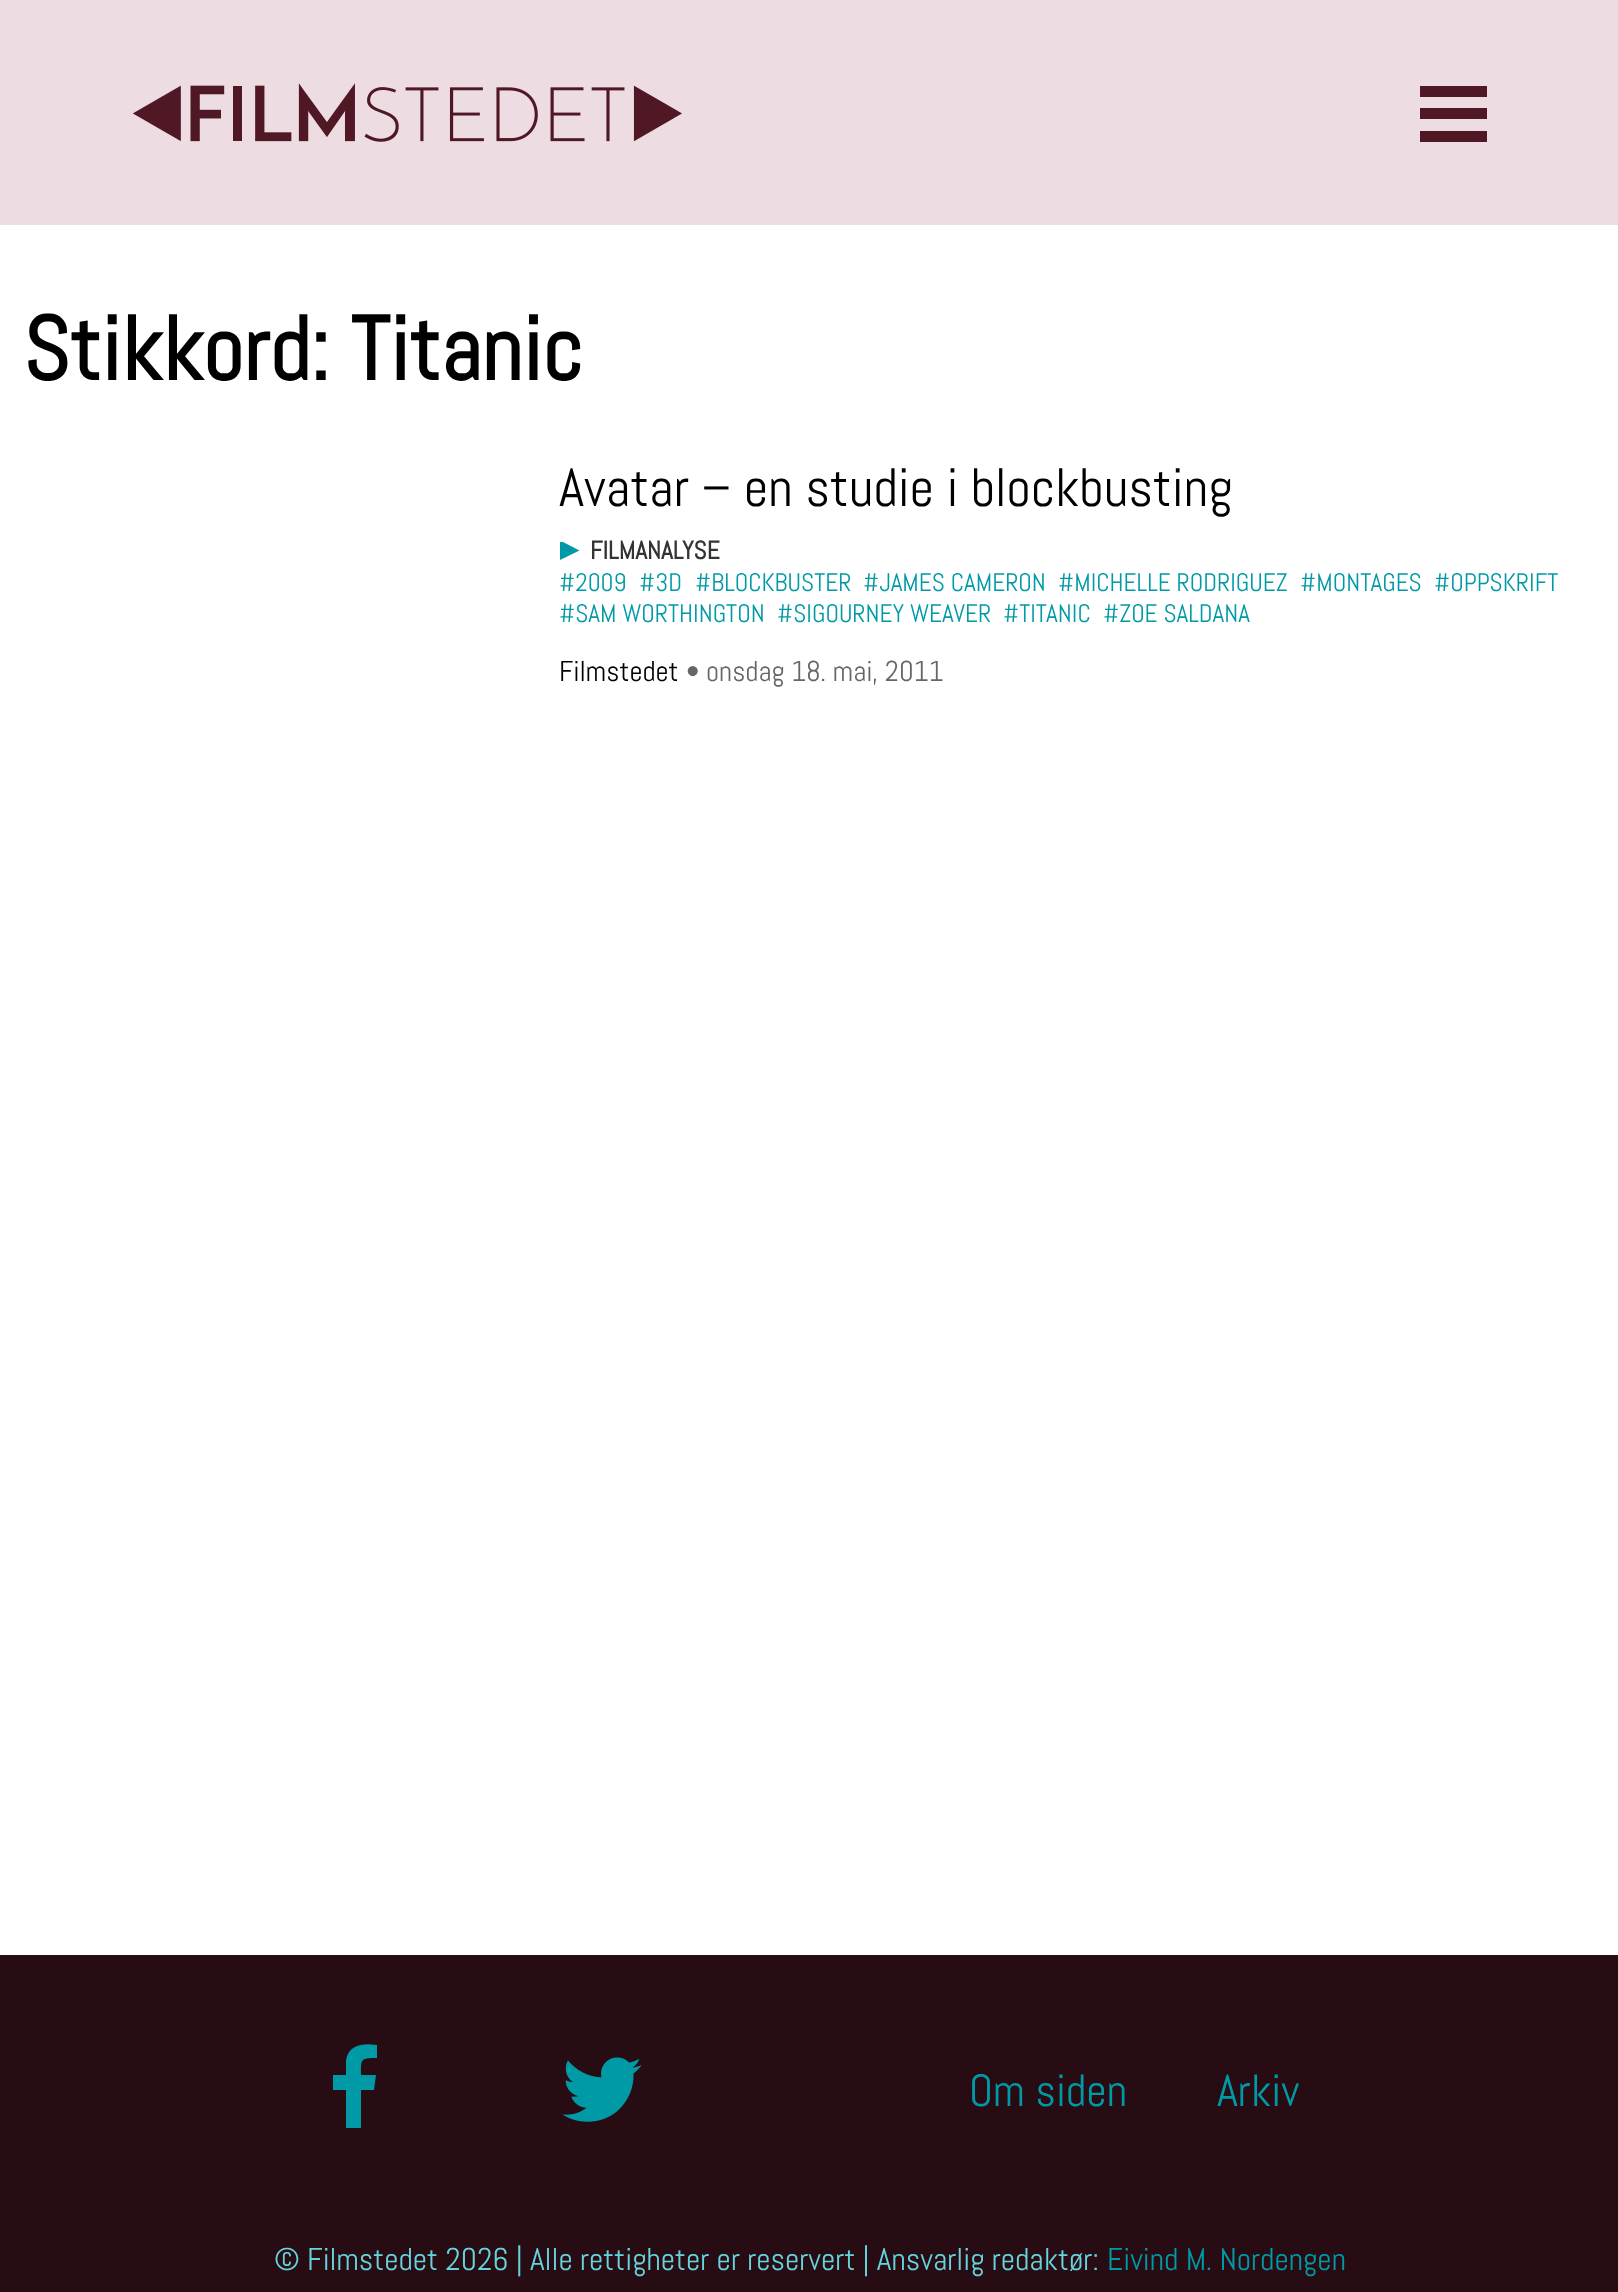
(async () => {
const canvas = document.querySelector("canvas")
canvas.width = 1618
canvas.height = 2292
const c = canvas.getContext("2d")
c.miterLimit = 4
c.fontKerning = "normal"
function T(s,x,y){c.fillText(s,x,y)}
function R(x,y,w,h){c.fillRect(x,y,w,h)}
async function I(src,x,y,w,h){const img=new Image();img.src=src;await img.decode();c.drawImage(img,x,y,w,h)}
let path
c.fillStyle="#fff"
R(0,0,1618,2292)
c.fillStyle="#eddde2"
R(0,0,1618,225)
await I("1.png",133,83,549,59)
c.fillStyle="#501725"
R(1420,108,67,11)
R(1420,86,67,11)
R(1420,131,67,11)
c.font="bold 90px Abel"
c.fillStyle="#000"
T("Stikkord: Titanic",23,380)
c.font="54px Abel"
T("Avatar – en studie i blockbusting",559,506)
c.fillStyle="#009aa6"
path = new Path2D("M560 542h3l16.5 8.5l-19.5 9.5z")
c.fill(path)
c.font="bold 25.25px Abel"
c.fillStyle="#333"
T("FILMANALYSE",590,559)
c.font="25.25px Abel"
c.fillStyle="#009aa6"
T("#2009",559,591)
T("#3D",639,591)
T("#BLOCKBUSTER",695,591)
T("#JAMES CAMERON",863,591)
T("#MICHELLE RODRIGUEZ",1058,591)
T("#MONTAGES",1300,591)
T("#OPPSKRIFT",1434,591)
T("#SAM WORTHINGTON",559,622)
T("#SIGOURNEY WEAVER",777,622)
T("#TITANIC",1003,622)
T("#ZOE SALDANA",1103,622)
c.font="28.75px Abel"
c.fillStyle="#000"
T("Filmstedet",559,681)
c.fillStyle="#666"
T("• onsdag 18. mai, 2011",686,681)
c.fillStyle="#280c13"
R(0,1955,1618,337)
c.fillStyle="#009aa6"
path = new Path2D("M377 2045v13c-17 0-16 1-16 17h15l-2 15h-13v38h-15v-38h-13v-15h13v-15c3-16 18-17 31-15z")
c.fill(path)
await I("2.png",562,2057,80,65)
c.font="45px Abel"
T("Om siden",969,2106)
T("Arkiv",1217,2106)
c.font="31.5px Abel"
c.fillStyle="#66d4dc"
T("© Filmstedet 2026 | Alle rettigheter er reservert | Ansvarlig redaktør:",274,2270)
c.fillStyle="#009aa6"
T("Eivind M. Nordengen",1107,2270)
})()
